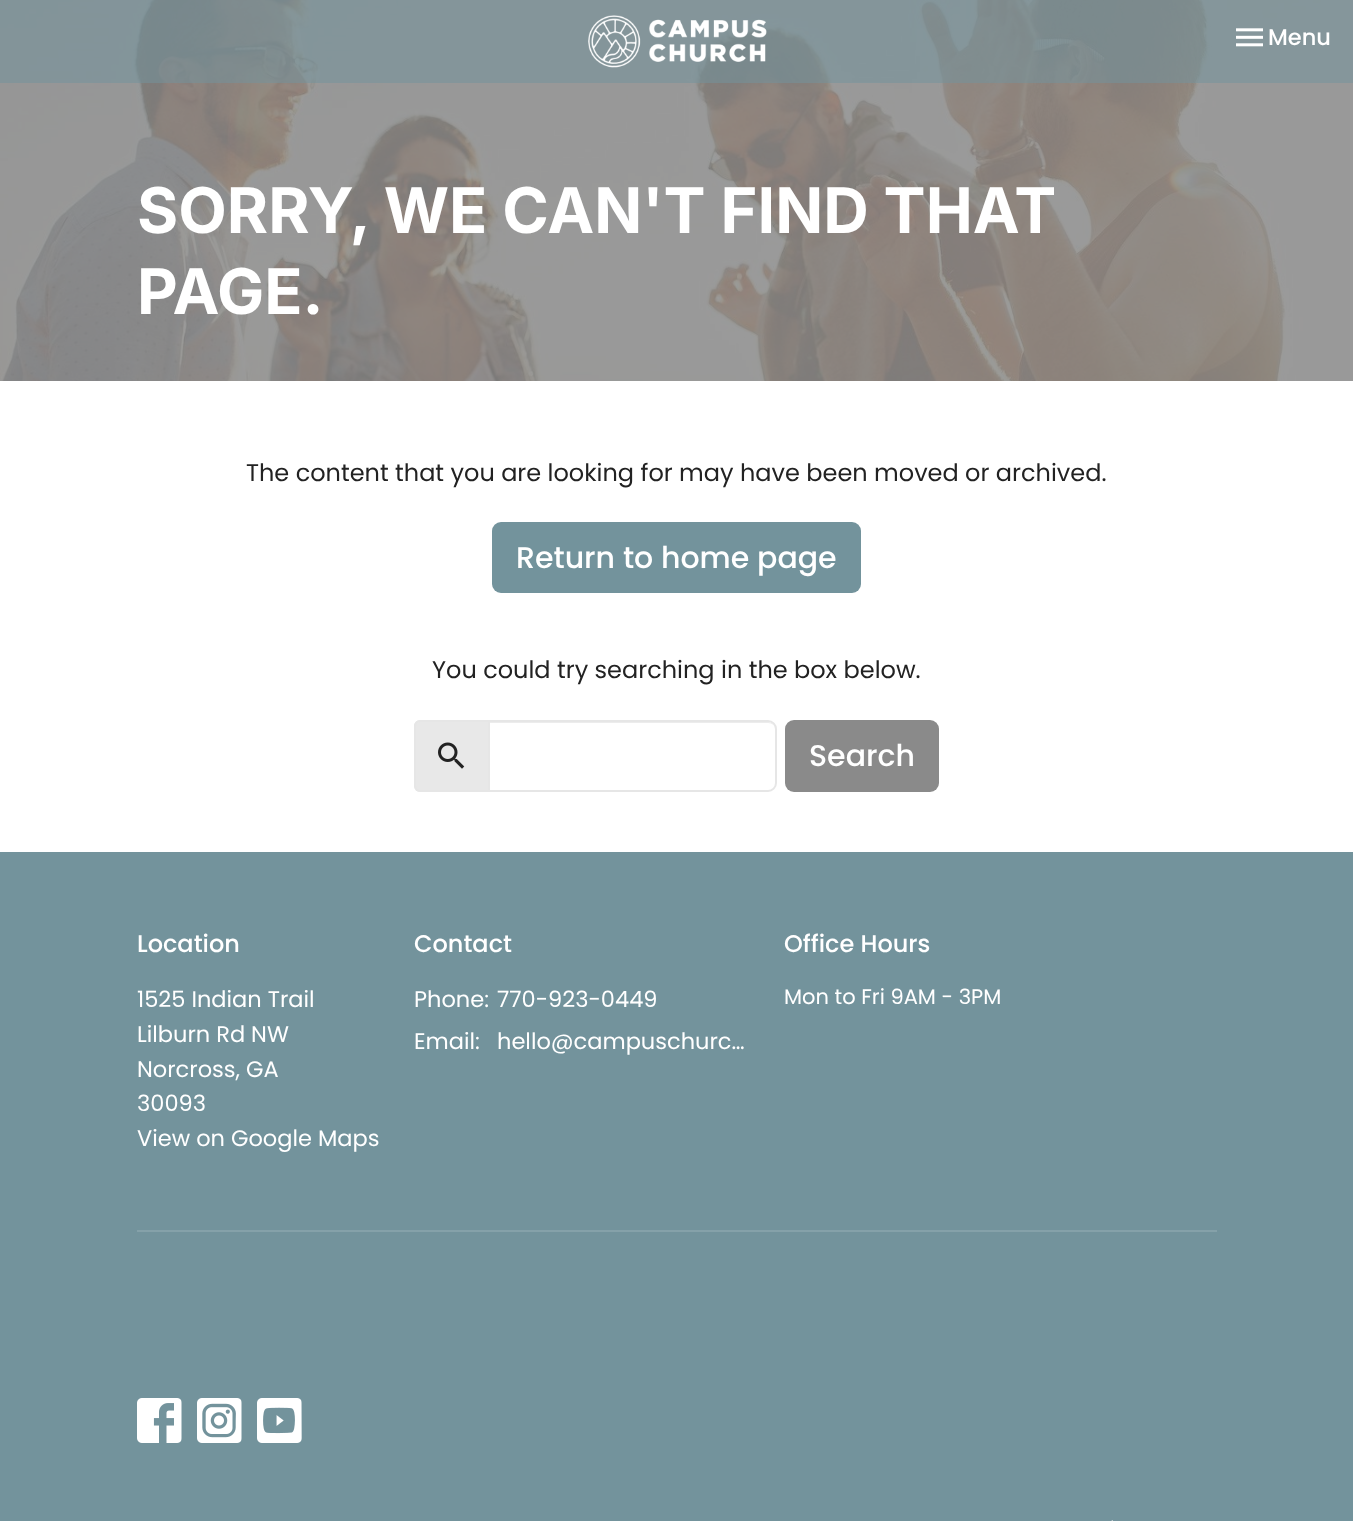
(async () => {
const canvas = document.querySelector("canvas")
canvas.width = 1353
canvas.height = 1521
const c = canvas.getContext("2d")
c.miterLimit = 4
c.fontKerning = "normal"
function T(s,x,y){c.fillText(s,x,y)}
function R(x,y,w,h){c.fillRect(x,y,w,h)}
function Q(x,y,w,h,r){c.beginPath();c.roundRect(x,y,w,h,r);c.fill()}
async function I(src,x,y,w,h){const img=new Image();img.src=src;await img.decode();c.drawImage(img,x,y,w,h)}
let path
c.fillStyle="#fff"
R(0,0,1353,1521)
await I("3.png",0,0,1353,381)
c.fillStyle="#73939c87"
R(0,0,1353,83)
await I("1.png",588,15,179,53)
await I("2.png",1236,28,27,19)
c.font="500 22.5px Poppins"
c.fillStyle="#fff"
T("Menu",1268,45)
c.font="bold 63px Inter"
T("SORRY, WE CAN'T FIND THAT",137,233)
T("PAGE.",137,314)
c.font="24px Poppins"
c.fillStyle="#222"
T("The content that you are looking for may have been moved or archived.",246,481)
c.fillStyle="#73939c"
Q(492,522,369,71,9)
c.font="500 30px Poppins"
c.fillStyle="#fff"
T("Return to home page",516,568)
c.font="24px Poppins"
c.fillStyle="#222"
T("You could try searching in the box below.",432,678)
c.fillStyle="#e8e8e8"
c.beginPath()
c.roundRect(414,720,74,72,[6,0,0,6])
c.fill()
c.fillStyle="#e6e6e6"
path = new Path2D("M420 720h68v72h-68c-3 0-6-3-6-6v-60c0-3 3-6 6-6zm0 2h68v68h-68c-2 0-4-2-4-4v-60c0-2 2-4 4-4z")
c.fill(path,"evenodd")
await I("4.png",438,742,27,27)
c.fillStyle="#ececec"
path = new Path2D("M489 723h279c4 0 8 3 8 7c0-4-4-8-8-8h-279z")
c.fill(path)
c.beginPath()
c.roundRect(489,721,287,70,[0,8,8,0])
c.strokeStyle="#e6e6e6"
c.lineWidth=2
c.stroke()
c.fillStyle="#8a8a8a"
Q(785,720,154,72,9)
c.font="500 30px Poppins"
c.fillStyle="#fff"
T("Search",809,766)
c.fillStyle="#73939c"
R(0,852,1353,669)
c.font="500 24px Poppins"
c.fillStyle="#fff"
T("Location",137,952)
c.font="22.5px Poppins"
T("1525 Indian Trail",137,1007)
T("Lilburn Rd NW",137,1042)
T("Norcross, GA",137,1077)
T("30093",137,1111)
T("View on Google Maps",137,1146)
c.font="500 24px Poppins"
T("Contact",414,952)
c.font="22.5px Poppins"
T("Phone:",414,1007)
T("770-923-0449",497,1007)
T("Email:",414,1049)
T("hello@campuschurc…",497,1049)
c.font="500 24px Poppins"
T("Office Hours",784,952)
c.font="21px Poppins"
T("Mon to Fri 9AM - 3PM",784,1004)
c.fillStyle="#85a1a9"
R(137,1230,1080,2)
await I("5.png",137,1398,45,45)
await I("6.png",197,1398,45,45)
await I("7.png",257,1398,45,45)
await I("8.png",1111,1520,2,1)
})()
